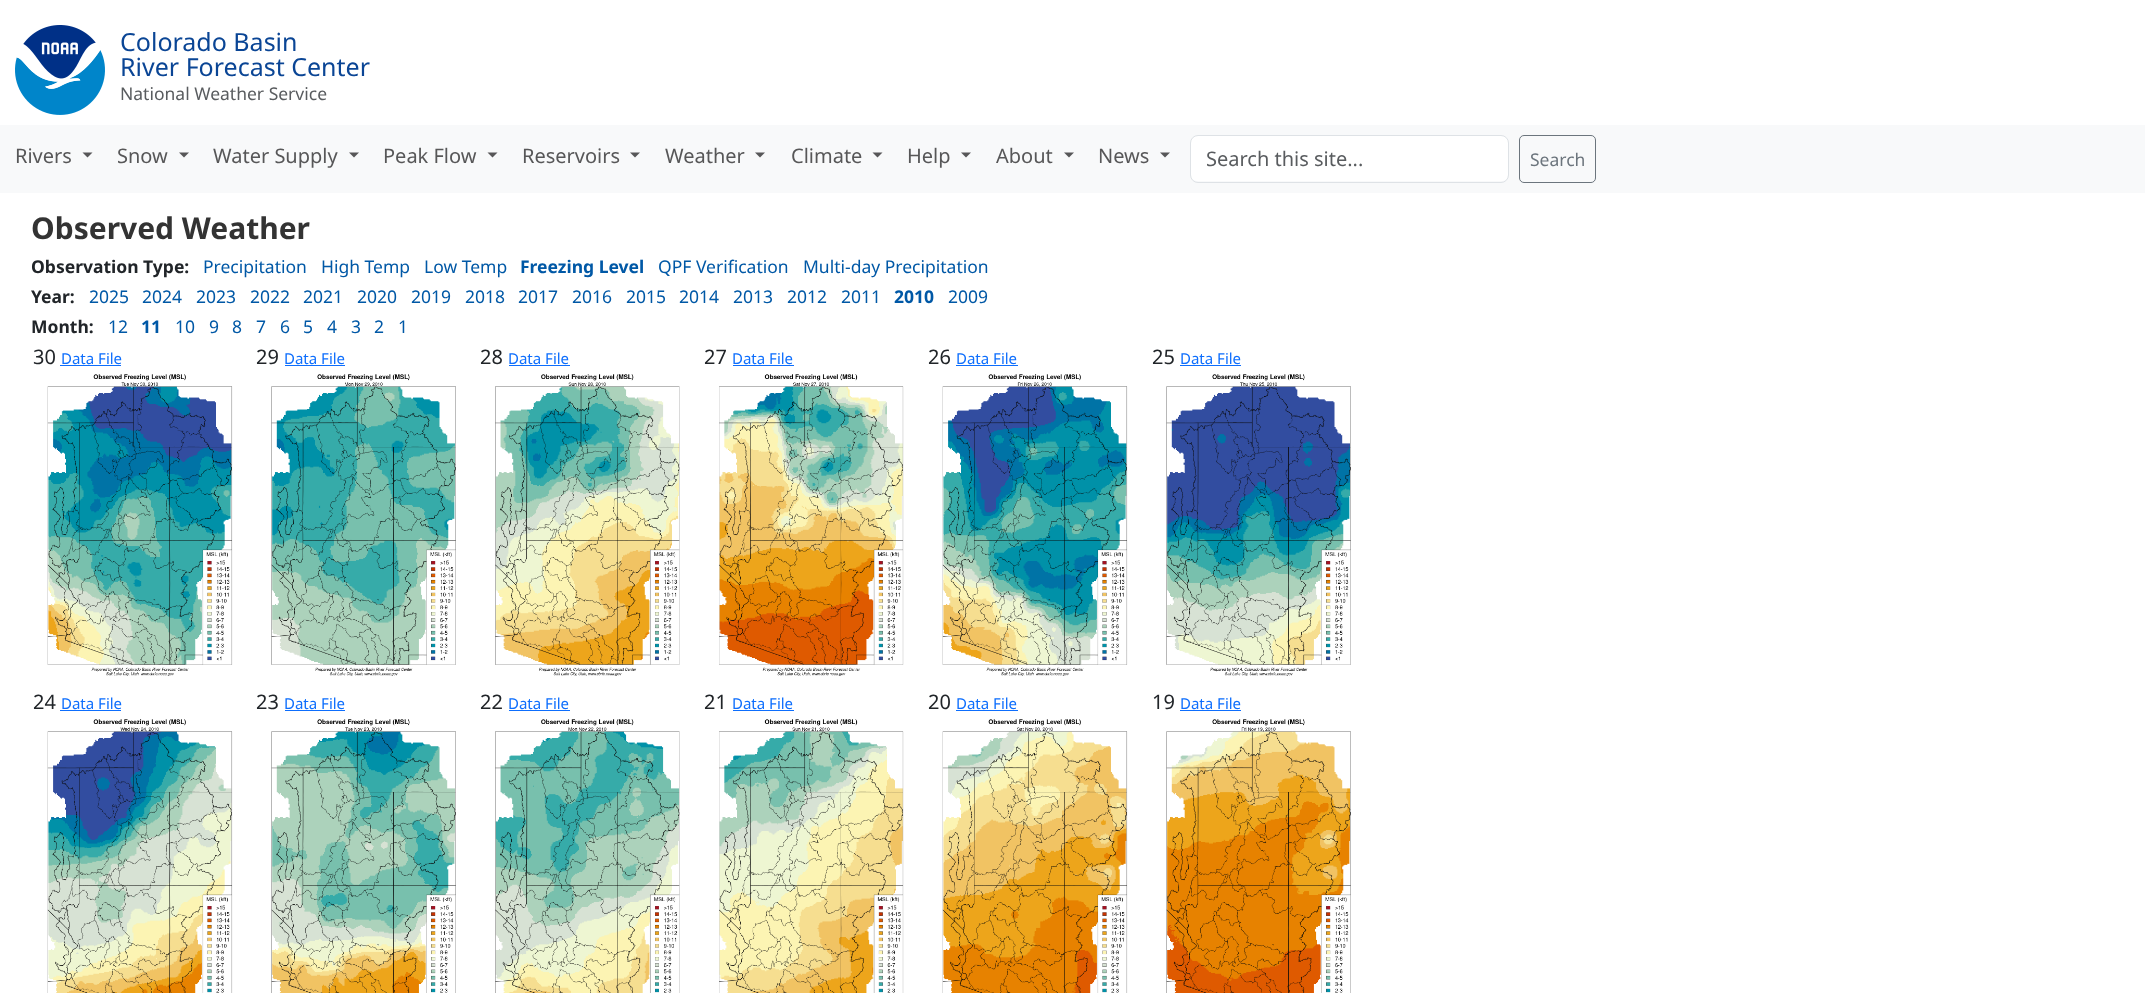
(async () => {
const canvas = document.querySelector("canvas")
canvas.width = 2145
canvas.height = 993
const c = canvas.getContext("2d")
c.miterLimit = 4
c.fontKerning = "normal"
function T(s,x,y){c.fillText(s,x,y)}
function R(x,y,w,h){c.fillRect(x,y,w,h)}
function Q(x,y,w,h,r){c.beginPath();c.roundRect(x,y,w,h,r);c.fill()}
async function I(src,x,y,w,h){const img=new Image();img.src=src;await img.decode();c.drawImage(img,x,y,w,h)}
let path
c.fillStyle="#fff"
R(0,0,2145,993)
await I("1.png",15,25,90,90)
c.font="25px Noto Sans"
c.fillStyle="#0a4595"
T("Colorado Basin",120,51)
T("River Forecast Center",120,76)
c.font="17.5px Noto Sans"
c.fillStyle="#595c5f"
T("National Weather Service",120,100)
c.fillStyle="#f8f9fa"
R(0,125,2145,68)
c.font="20px Noto Sans"
c.fillStyle="#575758"
T("Rivers",15,163)
path = new Path2D("M82.5 152.5h10l-5 5z")
c.fill(path)
T("Snow",117,163)
path = new Path2D("M179 152.5h10l-5 5z")
c.fill(path)
T("Water Supply",213,163)
path = new Path2D("M349 152.5h10l-5 5z")
c.fill(path)
T("Peak Flow",383,163)
path = new Path2D("M487.5 152.5h10l-5 5z")
c.fill(path)
T("Reservoirs",522,163)
path = new Path2D("M630 152.5h10l-5 5z")
c.fill(path)
T("Weather",665,163)
path = new Path2D("M755 152.5h10l-5 5z")
c.fill(path)
T("Climate",791,163)
path = new Path2D("M872.5 152.5h10l-5 5z")
c.fill(path)
T("Help",907,163)
path = new Path2D("M961 152.5h10l-5 5z")
c.fill(path)
T("About",996,163)
path = new Path2D("M1064 152.5h10l-5 5z")
c.fill(path)
T("News",1098,163)
path = new Path2D("M1160 152.5h10l-5 5z")
c.fill(path)
c.fillStyle="#fff"
Q(1191,136,317,45,6)
c.beginPath()
c.roundRect(1190.5,135.5,318,47,7.5)
c.strokeStyle="#dee2e6"
c.stroke()
c.fillStyle="#595c5f"
T("Search this site...",1206,166)
c.beginPath()
c.roundRect(1519.5,135.5,76,47,4.5)
c.strokeStyle="#6c757d"
c.stroke()
c.font="17.5px Noto Sans"
c.fillStyle="#6c757d"
T("Search",1530,166)
c.font="bold 30px Noto Sans"
c.fillStyle="#333"
T("Observed Weather",31,239)
c.font="bold 17.5px Noto Sans"
c.fillStyle="#212529"
T("Observation Type:",31,273)
c.font="17.5px Noto Sans"
c.fillStyle="#0058a6"
T("Precipitation",203,273)
T("High Temp",321,273)
T("Low Temp",424,273)
c.font="bold 17.5px Noto Sans"
T("Freezing Level",520,273)
c.font="17.5px Noto Sans"
T("QPF Verification",658,273)
T("Multi-day Precipitation",803,273)
c.font="bold 17.5px Noto Sans"
c.fillStyle="#212529"
T("Year:",31,303)
c.font="17.5px Noto Sans"
c.fillStyle="#0058a6"
T("2025",89,303)
T("2024",142,303)
T("2023",196,303)
T("2022",250,303)
T("2021",303,303)
T("2020",357,303)
T("2019",411,303)
T("2018",465,303)
T("2017",518,303)
T("2016",572,303)
T("2015",626,303)
T("2014",679,303)
T("2013",733,303)
T("2012",787,303)
T("2011",841,303)
c.font="bold 17.5px Noto Sans"
T("2010",894,303)
c.font="17.5px Noto Sans"
T("2009",948,303)
c.font="bold 17.5px Noto Sans"
c.fillStyle="#212529"
T("Month:",31,333)
c.font="17.5px Noto Sans"
c.fillStyle="#0058a6"
T("12",108,333)
c.font="bold 17.5px Noto Sans"
T("11",141,333)
c.font="17.5px Noto Sans"
T("10",175,333)
T("9",209,333)
T("8",232,333)
T("7",256,333)
T("6",280,333)
T("5",303,333)
T("4",327,333)
T("3",351,333)
T("2",374,333)
T("1",398,333)
c.font="20px Noto Sans"
c.fillStyle="#212529"
T("30",33,364)
c.font="15px Noto Sans"
c.fillStyle="#0d6efd"
T("Data File",61,364)
R(60,365,61,1)
await I("2.png",47,374,186,302)
c.font="20px Noto Sans"
c.fillStyle="#212529"
T("29",256,364)
c.font="15px Noto Sans"
c.fillStyle="#0d6efd"
T("Data File",284,364)
R(285,365,60,1)
await I("3.png",271,374,185,302)
c.font="20px Noto Sans"
c.fillStyle="#212529"
T("28",480,364)
c.font="15px Noto Sans"
c.fillStyle="#0d6efd"
T("Data File",508,364)
R(509,365,61,1)
await I("4.png",495,374,185,302)
c.font="20px Noto Sans"
c.fillStyle="#212529"
T("27",704,364)
c.font="15px Noto Sans"
c.fillStyle="#0d6efd"
T("Data File",732,364)
R(733,365,61,1)
await I("5.png",719,374,185,302)
c.font="20px Noto Sans"
c.fillStyle="#212529"
T("26",928,364)
c.font="15px Noto Sans"
c.fillStyle="#0d6efd"
T("Data File",956,364)
R(956,365,62,1)
await I("6.png",942,374,186,302)
c.font="20px Noto Sans"
c.fillStyle="#212529"
T("25",1152,364)
c.font="15px Noto Sans"
c.fillStyle="#0d6efd"
T("Data File",1180,364)
R(1180,365,61,1)
await I("7.png",1166,374,185,302)
c.font="20px Noto Sans"
c.fillStyle="#212529"
T("24",33,709)
c.font="15px Noto Sans"
c.fillStyle="#0d6efd"
T("Data File",61,709)
R(60,710,61,1)
await I("8.png",47,719,186,274)
c.font="20px Noto Sans"
c.fillStyle="#212529"
T("23",256,709)
c.font="15px Noto Sans"
c.fillStyle="#0d6efd"
T("Data File",284,709)
R(285,710,60,1)
await I("9.png",271,719,185,274)
c.font="20px Noto Sans"
c.fillStyle="#212529"
T("22",480,709)
c.font="15px Noto Sans"
c.fillStyle="#0d6efd"
T("Data File",508,709)
R(509,710,61,1)
await I("10.png",495,719,185,274)
c.font="20px Noto Sans"
c.fillStyle="#212529"
T("21",704,709)
c.font="15px Noto Sans"
c.fillStyle="#0d6efd"
T("Data File",732,709)
R(733,710,61,1)
await I("11.png",719,719,185,274)
c.font="20px Noto Sans"
c.fillStyle="#212529"
T("20",928,709)
c.font="15px Noto Sans"
c.fillStyle="#0d6efd"
T("Data File",956,709)
R(956,710,62,1)
await I("12.png",942,719,186,274)
c.font="20px Noto Sans"
c.fillStyle="#212529"
T("19",1152,709)
c.font="15px Noto Sans"
c.fillStyle="#0d6efd"
T("Data File",1180,709)
R(1180,710,61,1)
await I("13.png",1166,719,185,274)
})()
